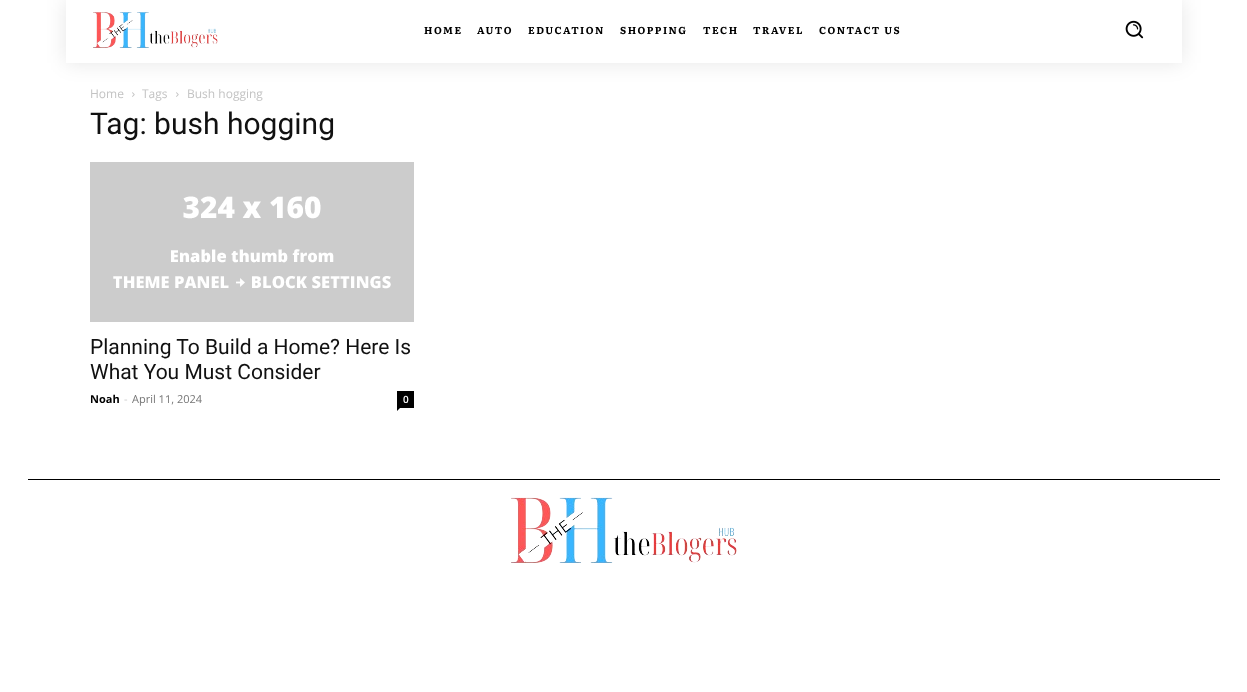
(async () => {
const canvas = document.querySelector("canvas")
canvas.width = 1247
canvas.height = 692
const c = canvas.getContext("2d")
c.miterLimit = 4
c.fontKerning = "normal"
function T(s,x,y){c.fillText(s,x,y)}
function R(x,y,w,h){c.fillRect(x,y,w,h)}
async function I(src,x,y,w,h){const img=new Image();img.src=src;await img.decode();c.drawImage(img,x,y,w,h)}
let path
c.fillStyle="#fff"
R(0,0,1247,692)
await I("1.png",93,12,125,36)
await I("3.png",132,92,3,5)
await I("3.png",176,92,3,5)
c.save()
path = new Path2D("M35 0h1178v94h-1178zm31 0h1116v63h-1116z")
c.clip(path,"evenodd")
c.fillStyle="#0000001a"
c.filter="blur(10px)"
c.beginPath()
c.rect(66,0,1116,63)
c.fill()
c.filter="none"
c.restore()
c.letterSpacing="1.5px"
c.font="bold 10px Literata"
c.fillStyle="#000"
T("HOME",424,34)
T("AUTO",477,34)
T("EDUCATION",528,34)
T("SHOPPING",620,34)
T("TECH",703,34)
T("TRAVEL",753,34)
T("CONTACT US",819,34)
await I("2.png",1125,20,19,19)
c.letterSpacing="0px"
c.font="12px Open Sans"
c.fillStyle="#c3c3c3"
T("Home",90,98)
T("Tags",142,98)
T("Bush hogging",187,98)
c.font="30px Roboto"
c.fillStyle="#111"
T("Tag: bush hogging",90,134)
await I("4.png",90,162,324,160)
c.font="21px Roboto"
T("Planning To Build a Home? Here Is",90,354)
T("What You Must Consider",90,379)
c.font="bold 11px Open Sans"
c.fillStyle="#000"
T("Noah",90,403)
c.font="11px Open Sans"
c.fillStyle="#ccc"
T("-",124,403)
c.fillStyle="#767676"
T("April 11, 2024",132,403)
c.fillStyle="#000"
R(397,391,17,17)
c.font="600 10px Open Sans"
c.fillStyle="#fff"
T("0",403,403)
c.fillStyle="#000"
path = new Path2D("M397 408h3l-3 3z")
c.fill(path)
R(28,479,1192,1)
await I("5.png",511,497,226,66)
})()
